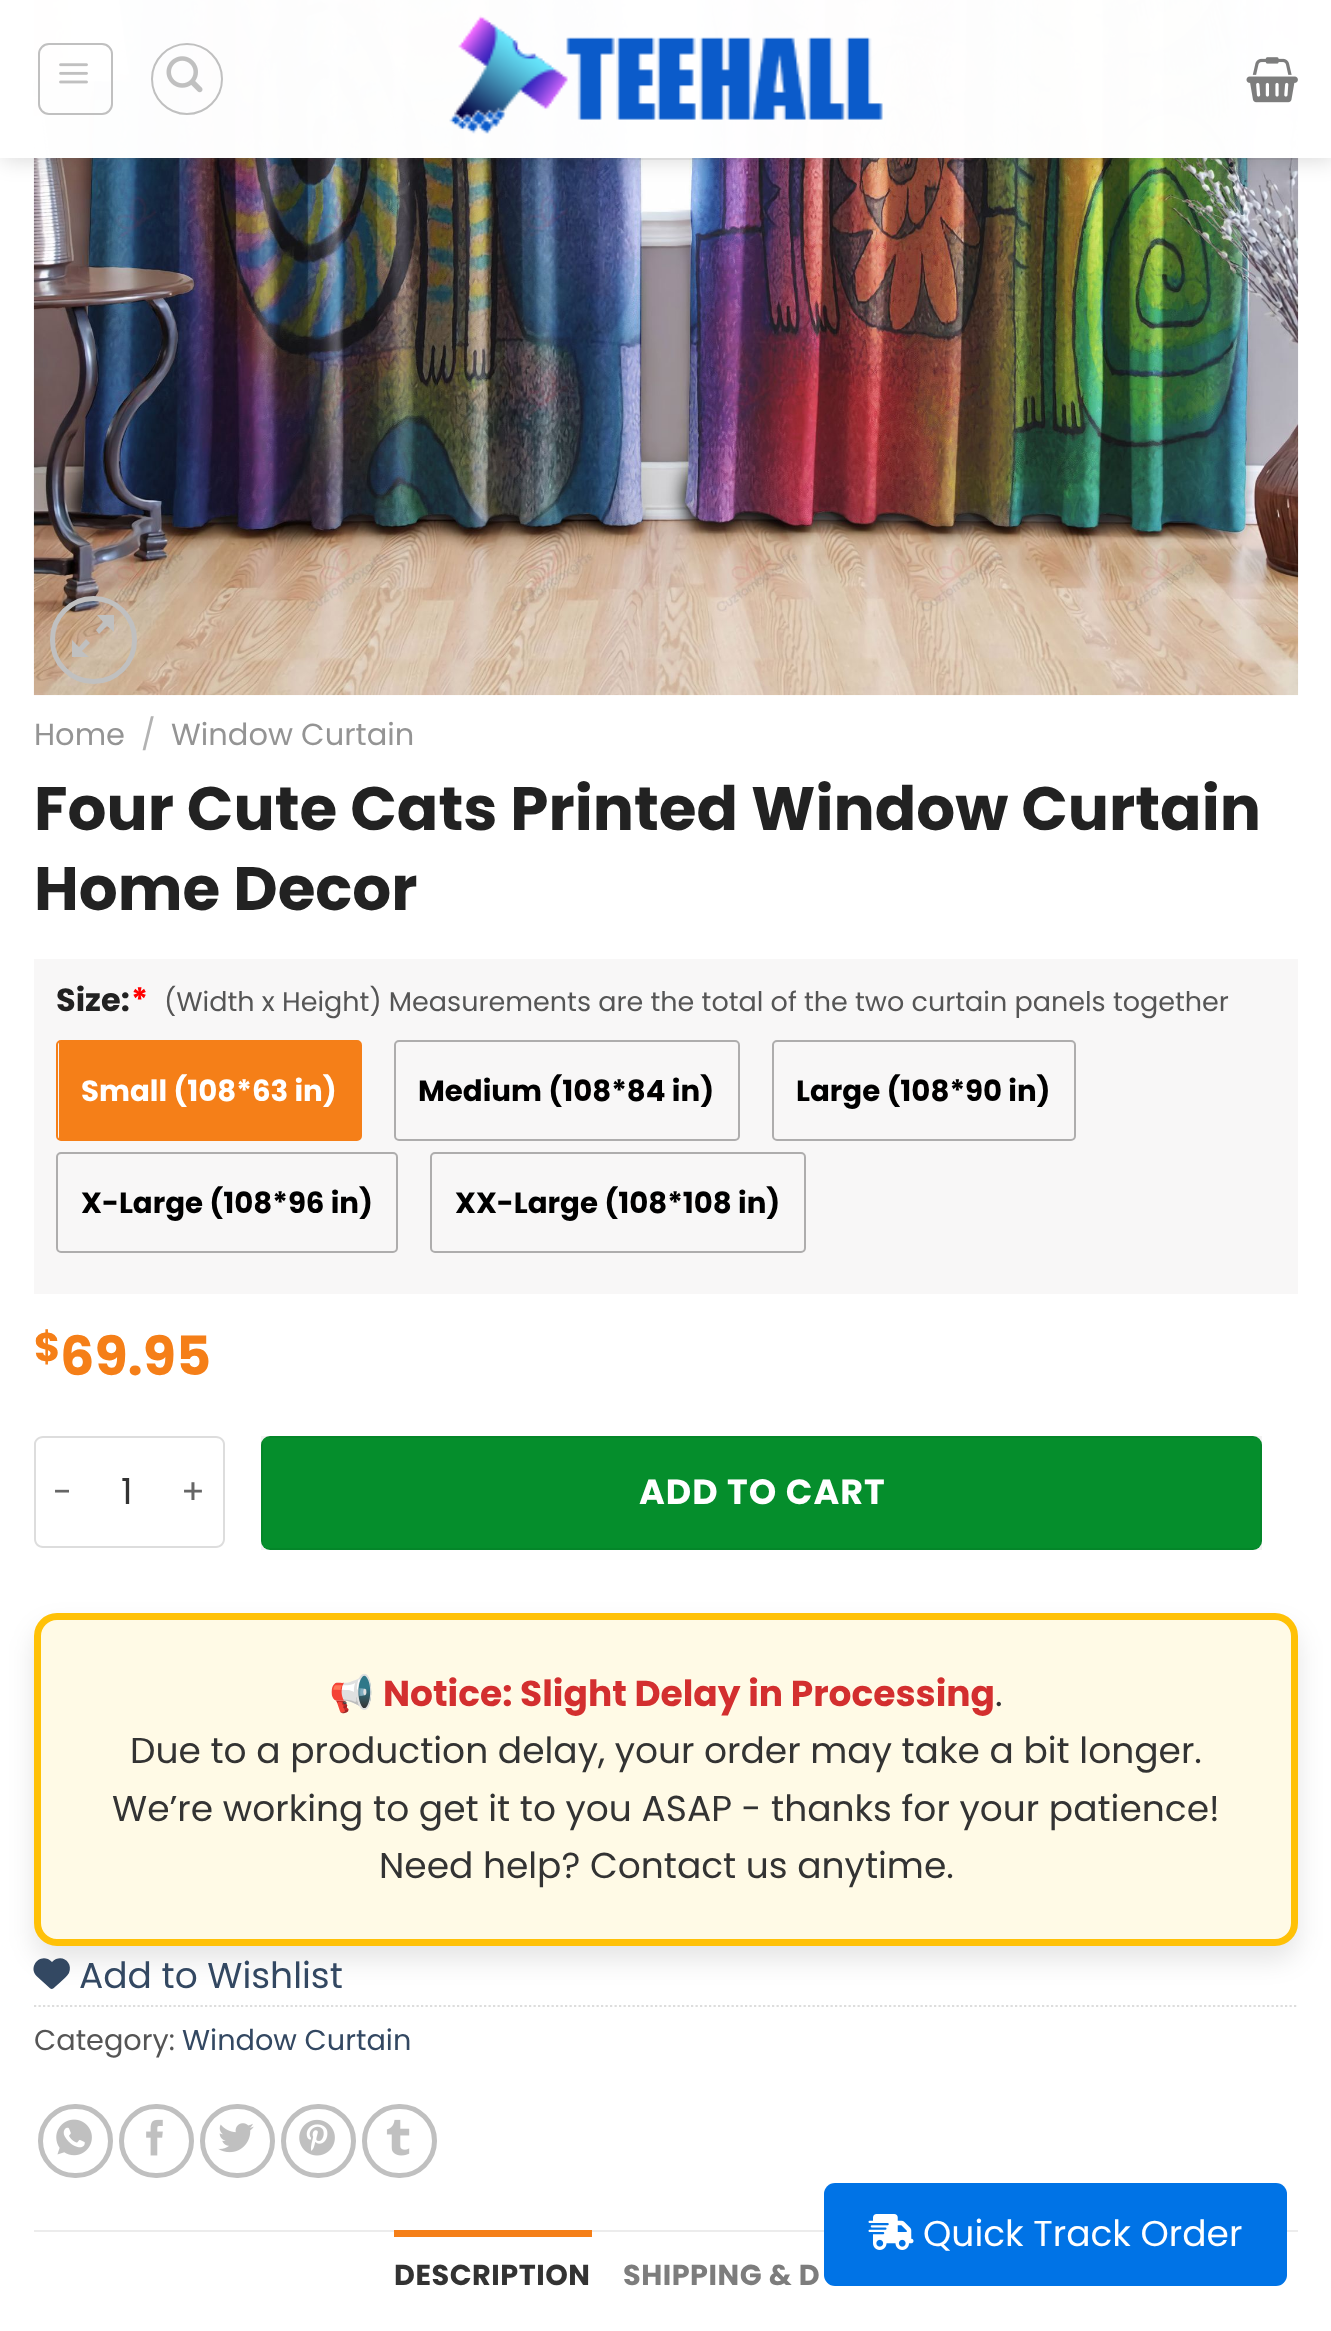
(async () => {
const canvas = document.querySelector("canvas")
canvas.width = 1331
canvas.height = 2331
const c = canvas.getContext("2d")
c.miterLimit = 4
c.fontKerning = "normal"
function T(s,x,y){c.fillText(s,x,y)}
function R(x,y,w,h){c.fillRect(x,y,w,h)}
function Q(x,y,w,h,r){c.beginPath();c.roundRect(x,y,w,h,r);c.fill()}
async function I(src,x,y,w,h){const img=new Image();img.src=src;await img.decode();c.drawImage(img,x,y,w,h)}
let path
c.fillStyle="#fff"
R(0,0,1331,2331)
await I("5.png",33,0,1266,696)
c.save()
path = new Path2D("M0 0h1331v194h-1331zm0 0h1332v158h-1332z")
c.clip(path,"evenodd")
c.fillStyle="#00000026"
c.filter="blur(11px)"
c.beginPath()
c.rect(2,2,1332,158)
c.fill()
c.filter="none"
c.restore()
c.fillStyle="#ffffffe6"
R(0,0,1331,158)
R(34,0,1264,158)
c.beginPath()
c.roundRect(39,44,73,70,10)
c.strokeStyle="#c0c0c0"
c.lineWidth=2
c.stroke()
await I("1.png",59,63,29,21)
c.beginPath()
c.arc(187,79,35,0,7)
c.stroke()
await I("2.png",166,56,37,37)
await I("3.png",449,15,434,119)
await I("4.png",1246,57,52,46)
c.fillStyle="#5555551a"
R(34,158,1264,2)
c.beginPath()
c.roundRect(52.5,598.5,82,83,41)
c.lineWidth=5
c.stroke()
c.fillStyle="#c0c0c0"
path = new Path2D("M114 615v17l-7-6l-8 8l-3-4l7-8l-6-7zm-24 28l-8 8l7 6h-17v-17l7 7l7-8z")
c.fill(path)
c.font="30.5px Poppins"
c.fillStyle="#949494"
T("Home",34,745)
c.fillStyle="#b2b2b2"
T("/",141,745)
c.fillStyle="#949494"
T("Window Curtain",171,745)
c.font="bold 61.2px Poppins"
c.fillStyle="#222"
T("Four Cute Cats Printed Window Curtain",34,830)
T("Home Decor",34,910)
c.fillStyle="#f8f7f7"
R(34,959,1264,335)
c.font="bold 32px Poppins"
c.fillStyle="#222"
T("Size:",56,1011)
c.fillStyle="#f00"
T("*",131,1011)
c.font="27px Poppins"
c.fillStyle="#555"
T("(Width x Height) Measurements are the total of the two curtain panels together",164,1011)
c.beginPath()
c.roundRect(57,1041,304,99,4)
c.strokeStyle="#f57f18"
c.lineWidth=2
c.stroke()
c.fillStyle="#f57f18"
R(59,1042,301,97)
c.font="bold 29.25px Poppins"
c.fillStyle="#fff"
T("Small (108*63 in)",81,1101)
c.beginPath()
c.roundRect(395,1041,344,99,4)
c.strokeStyle="#aeadad"
c.stroke()
c.fillStyle="#000"
T("Medium (108*84 in)",418,1101)
c.beginPath()
c.roundRect(773,1041,302,99,4)
c.stroke()
T("Large (108*90 in)",796,1101)
c.beginPath()
c.roundRect(57,1153,340,99,4)
c.stroke()
T("X-Large (108*96 in)",81,1213)
c.beginPath()
c.roundRect(431,1153,374,99,4)
c.stroke()
T("XX-Large (108*108 in)",455,1213)
c.font="bold 40px Poppins"
c.fillStyle="#f57f18"
T("$",34,1361)
c.font="bold 54px Poppins"
T("69.95",60,1375)
c.fillStyle="#ddd"
path = new Path2D("M43 1436h49v112h-49c-5 0-9-4-9-9v-95c0-4 4-8 9-8zm0 2h49v108h-49c-4 0-7-3-7-7v-95c0-3 3-6 7-6z")
c.fill(path,"evenodd")
c.letterSpacing="1px"
c.font="35px Poppins"
c.fillStyle="#666"
T("-",53,1504)
c.fillStyle="#ddd"
R(92,1436,72,2)
R(92,1546,72,2)
c.letterSpacing="0px"
c.font="36px Poppins"
c.fillStyle="#333"
T("1",121,1504)
c.fillStyle="#ddd"
path = new Path2D("M164 1436h52c5 0 9 4 9 8v95c0 5-4 9-9 9h-52zm0 2h52c4 0 7 3 7 6v95c0 4-3 7-7 7h-52z")
c.fill(path,"evenodd")
c.letterSpacing="1px"
c.font="35px Poppins"
c.fillStyle="#666"
T("+",181,1504)
c.fillStyle="#058e2c"
Q(261,1436,1001,114,9)
c.strokeStyle="#0000000d"
c.strokeRect(262,1437,999,112)
c.font="bold 35px Poppins"
c.fillStyle="#fff"
T("ADD TO CART",639,1504)
c.fillStyle="#0000001a"
c.filter="blur(13.5px)"
c.beginPath()
c.roundRect(34,1627,1264,333,23)
c.fill()
c.filter="none"
c.fillStyle="#fffae6"
c.beginPath()
c.roundRect(37.5,1616.5,1257,326,19.5)
c.fill()
c.strokeStyle="#ffc107"
c.lineWidth=7
c.stroke()
c.letterSpacing="0px"
c.font="36px Noto Color Emoji"
c.fillStyle="#333"
T("📢",329,1706)
c.font="bold 36px Poppins"
c.fillStyle="#d32f2f"
T("Notice: Slight Delay in Processing",383,1706)
c.font="36px Poppins"
c.fillStyle="#333"
T(".",995,1706)
T("Due to a production delay, your order may take a bit longer.",130,1763)
T("We’re working to get it to you ASAP - thanks for your patience!",112,1821)
T("Need help? Contact us anytime.",379,1878)
c.fillStyle="#334862"
path = new Path2D("M37 1976.5l10.5 9.5c4 4 4.5 4 8.5 0l4-3.5c3-3 7-6 9-9.5c4.5-11-8-20-17-11c-11-11-25 5-15 14.5z")
c.fill(path)
T("Add to Wishlist",79,1988)
path = new Path2D("M34 2006h1264")
c.strokeStyle="#ddd"
c.lineWidth=2.2
c.setLineDash([2.25,2.25])
c.stroke(path)
c.font="28.75px Poppins"
c.fillStyle="#555"
T("Category:",34,2050)
c.fillStyle="#334862"
T("Window Curtain",182,2050)
c.beginPath()
c.roundRect(40.5,2106.5,70,69,34.5)
c.strokeStyle="#c0c0c0"
c.lineWidth=5
c.setLineDash([])
c.stroke()
await I("6.png",56,2119,36,37)
c.beginPath()
c.roundRect(121.5,2106.5,70,69,34.5)
c.stroke()
await I("7.png",146,2119,17,37)
c.beginPath()
c.roundRect(202.5,2106.5,70,69,34.5)
c.stroke()
await I("8.png",218,2123,36,30)
c.beginPath()
c.roundRect(283.5,2106.5,70,69,34.5)
c.stroke()
await I("9.png",299,2119,36,37)
c.beginPath()
c.roundRect(364.5,2106.5,70,69,34.5)
c.stroke()
await I("10.png",386,2119,24,37)
c.fillStyle="#ececec"
R(34,2230,1264,2)
c.fillStyle="#f57f18"
R(394,2230,198,7)
c.letterSpacing="0.5px"
c.font="bold 28.75px Poppins"
c.fillStyle="#333"
T("DESCRIPTION",394,2285)
c.fillStyle="#7d7d7d"
T("SHIPPING & D",623,2285)
c.fillStyle="#0073e6"
Q(824,2183,463,103,11)
await I("11.png",868,2214,46,36)
c.letterSpacing="0px"
c.font="36px Poppins"
c.fillStyle="#fff"
T("Quick Track Order",923,2246)
})()
